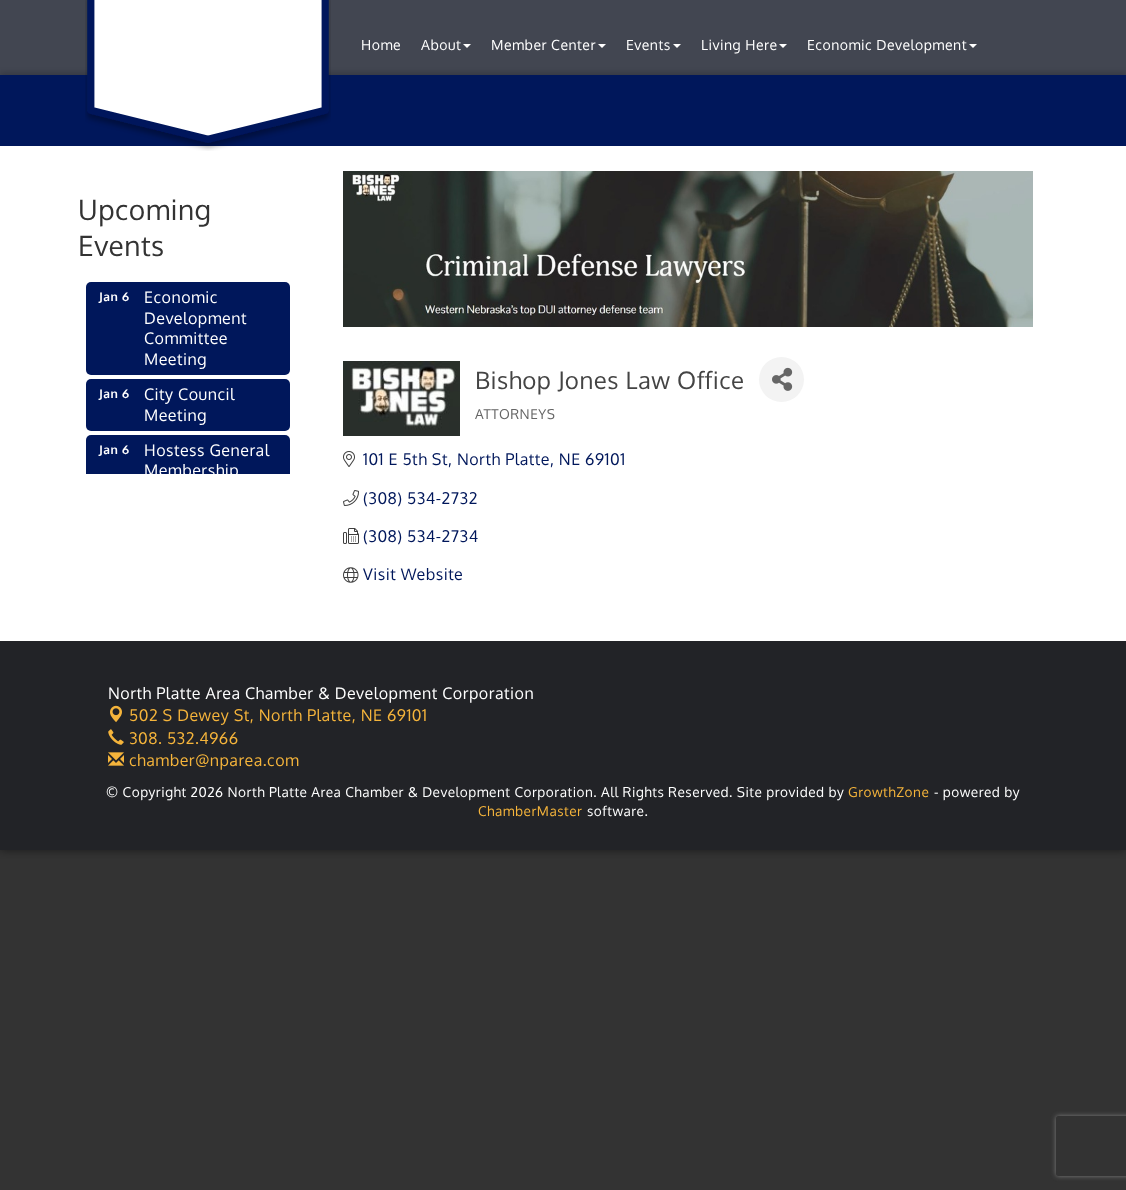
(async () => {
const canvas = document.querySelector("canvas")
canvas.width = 1126
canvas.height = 1190
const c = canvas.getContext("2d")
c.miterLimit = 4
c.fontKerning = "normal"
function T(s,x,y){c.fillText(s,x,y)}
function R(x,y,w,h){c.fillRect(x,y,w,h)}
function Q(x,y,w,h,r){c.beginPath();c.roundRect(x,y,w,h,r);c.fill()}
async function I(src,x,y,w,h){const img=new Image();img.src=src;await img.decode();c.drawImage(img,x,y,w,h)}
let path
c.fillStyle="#333"
R(0,0,1126,1190)
c.fillStyle="#f3f3f3"
R(0,0,1126,75)
c.save()
c.beginPath()
c.rect(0,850,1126,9)
c.clip()
c.fillStyle="#00000080"
c.filter="blur(5px)"
c.beginPath()
c.rect(0,0,1126,850)
c.fill()
c.filter="none"
c.restore()
c.fillStyle="#0000004d"
c.filter="blur(3px)"
c.beginPath()
c.rect(0,73,1126,71)
c.fill()
c.filter="none"
c.fillStyle="#151a28cc"
R(0,0,1126,75)
c.fillStyle="#00175b"
R(0,75,1126,71)
c.fillStyle="#fff"
R(0,146,1126,495)
await I("1.png",85,0,246,151)
c.letterSpacing="0.5px"
c.font="14px Oxygen"
T("Home",361,50)
T("About",421,50)
path = new Path2D("M463 44h8l-4 4z")
c.fill(path)
T("Member Center",491,50)
path = new Path2D("M598 44h8l-4 4z")
c.fill(path)
T("Events",626,50)
path = new Path2D("M673 44h8l-4 4z")
c.fill(path)
T("Living Here",701,50)
path = new Path2D("M779 44h8l-4 4z")
c.fill(path)
T("Economic Development",807,50)
path = new Path2D("M969 44h8l-4 4z")
c.fill(path)
c.font="28px Oxygen"
c.fillStyle="#333"
T("Upcoming",78,220)
T("Events",78,256)
c.fillStyle="#00175b"
Q(86,282,204,93,5)
c.font="bold 12px Oxygen"
c.fillStyle="#fff"
T("Jan 6",99,301)
c.font="16px Oxygen"
T("Economic",144,303)
T("Development",144,324)
T("Committee",144,344)
T("Meeting",144,365)
c.fillStyle="#00175b"
Q(86,379,204,52,5)
c.font="bold 12px Oxygen"
c.fillStyle="#fff"
T("Jan 6",99,398)
c.font="16px Oxygen"
T("City Council",144,400)
T("Meeting",144,421)
c.fillStyle="#00175b"
c.beginPath()
c.roundRect(86,435,204,39,[5,5,0,0])
c.fill()
c.font="bold 12px Oxygen"
c.fillStyle="#fff"
T("Jan 6",99,454)
c.font="16px Oxygen"
T("Hostess General",144,456)
c.save()
c.beginPath()
c.rect(86,282,204,192)
c.clip()
T("Membership",144,476)
c.restore()
await I("2.png",343,171,690,156)
await I("3.png",343,361,117,75)
c.font="24px Oxygen"
c.fillStyle="#444"
T("Bishop Jones Law Office",475,389)
c.fillStyle="#f3f3f3"
c.beginPath()
c.arc(781.5,379.5,22.5,0,7)
c.fill()
await I("4.png",772,367,21,24)
c.font="13.6px Oxygen"
c.fillStyle="#656565"
T("ATTORNEYS",475,419)
await I("5.png",343,451,12,16)
c.font="16px Oxygen"
c.fillStyle="#00175b"
T("101 E 5th St, North Platte, NE 69101",363,465)
await I("6.png",343,490,16,16)
T("(308) 534-2732",363,504)
await I("7.png",343,528,16,16)
T("(308) 534-2734",363,542)
await I("8.png",343,567,16,16)
T("Visit Website",363,580)
c.fillStyle="#222327"
R(0,641,1126,209)
c.fillStyle="#fff"
T("North Platte Area Chamber & Development Corporation",108,699)
await I("9.png",110,705,12,18)
c.fillStyle="#f5b43b"
T("502 S Dewey St, North Platte, NE 69101",129,721)
await I("10.png",108,729,16,16)
T("308. 532.4966",129,744)
await I("11.png",108,752,16,14)
T("chamber@nparea.com",129,766)
c.font="13.6px Oxygen"
c.fillStyle="#fff"
T("© Copyright 2026 North Platte Area Chamber & Development Corporation. All Rights Reserved. Site provided by",106,797)
c.fillStyle="#f5b43b"
T("GrowthZone",848,797)
c.fillStyle="#fff"
T("- powered by",934,797)
c.fillStyle="#f5b43b"
T("ChamberMaster",478,816)
c.fillStyle="#fff"
T("software.",587,816)
c.save()
path = new Path2D("M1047 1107h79v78h-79zm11 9h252c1 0 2 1 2 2v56c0 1-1 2-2 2h-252c-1 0-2-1-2-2v-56c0-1 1-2 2-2z")
c.clip(path,"evenodd")
c.fillStyle="#808080"
c.filter="blur(2.5px)"
c.beginPath()
c.roundRect(1056,1116,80,60,2)
c.fill()
c.filter="none"
c.restore()
})()
